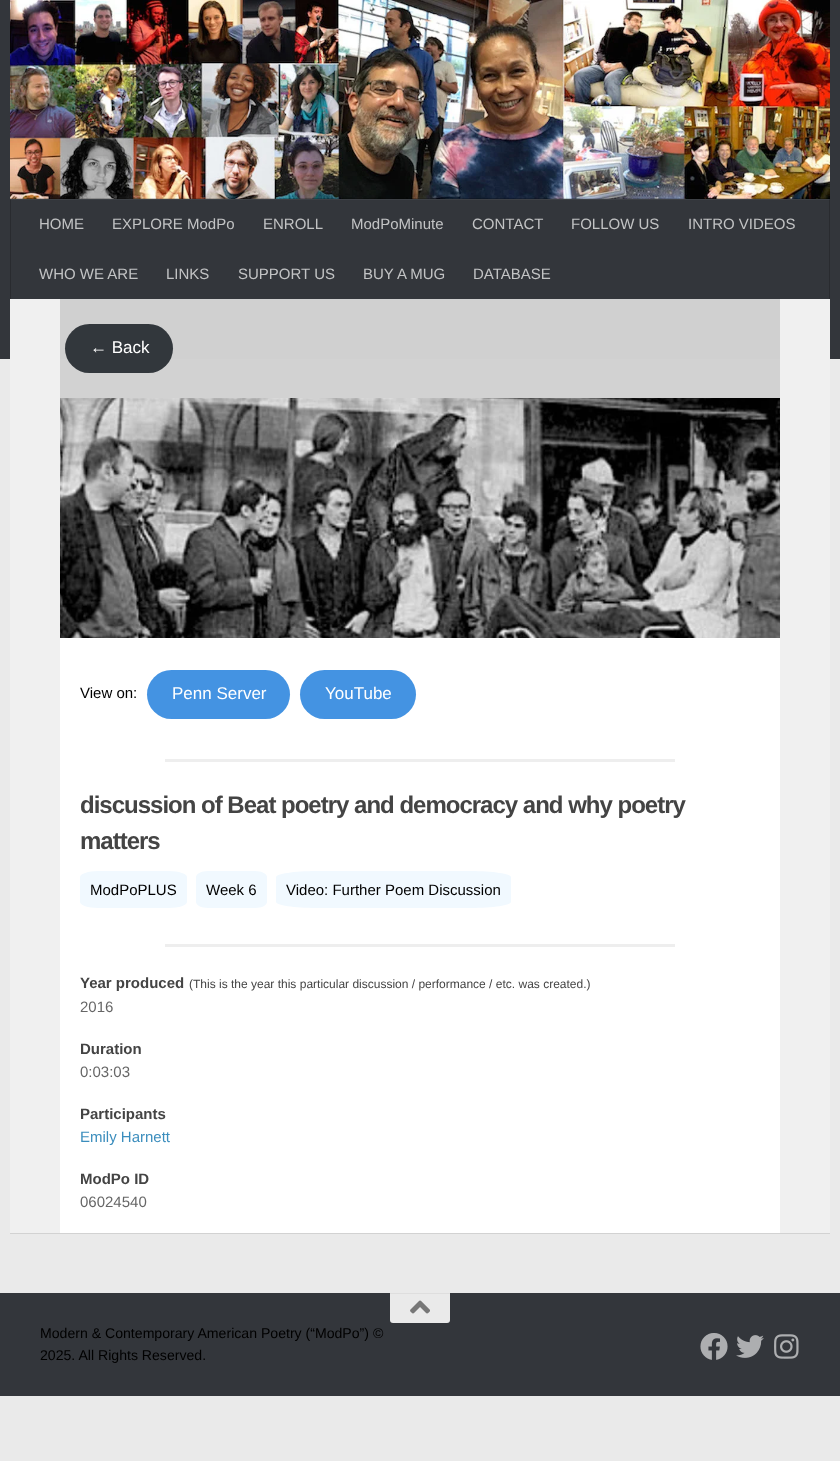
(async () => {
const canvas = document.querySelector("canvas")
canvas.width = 840
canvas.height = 1461
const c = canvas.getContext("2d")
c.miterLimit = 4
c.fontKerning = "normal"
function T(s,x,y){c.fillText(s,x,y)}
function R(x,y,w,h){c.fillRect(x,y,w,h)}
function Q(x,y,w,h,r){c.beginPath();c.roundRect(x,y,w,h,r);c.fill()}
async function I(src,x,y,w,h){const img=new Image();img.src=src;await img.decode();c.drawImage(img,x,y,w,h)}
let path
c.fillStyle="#eaeaea"
R(0,0,840,1461)
c.fillStyle="#0000001a"
c.filter="blur(0.5px)"
c.beginPath()
c.rect(10,300,820,934)
c.fill()
c.filter="none"
c.fillStyle="#33363b"
R(0,0,840,359)
c.fillStyle="#3d4045"
R(10,199,820,1)
await I("1.png",10,0,820,199)
c.fillStyle="#00000033"
R(10,198,820,1)
c.fillStyle="#292b2f"
R(829,199,1,100)
c.fillStyle="#343639"
R(829,199,1,1)
c.fillStyle="#292b2f"
R(10,199,1,100)
c.fillStyle="#343639"
R(10,199,1,1)
c.font="15px Liberation Sans"
c.fillStyle="#c2c3c4"
T("HOME",39,229)
T("EXPLORE ModPo",112,229)
T("ENROLL",263,229)
T("ModPoMinute",351,229)
T("CONTACT",472,229)
T("FOLLOW US",571,229)
T("INTRO VIDEOS",688,229)
T("WHO WE ARE",39,279)
T("LINKS",166,279)
T("SUPPORT US",238,279)
T("BUY A MUG",363,279)
T("DATABASE",473,279)
c.fillStyle="#fff"
R(60,638,720,595)
c.fillStyle="#f0f0f0"
R(10,299,50,934)
c.fillStyle="#d0d0d0"
R(60,299,720,60)
c.fillStyle="#32373c"
Q(65,324,108,49,24.5)
c.font="17px Liberation Sans"
c.fillStyle="#fff"
T("← Back",90,353)
await I("2.png",60,398,720,240)
c.font="15px Liberation Sans"
c.fillStyle="#000"
T("View on:",80,698)
c.fillStyle="#4493e2"
Q(147,670,143,49,24.5)
c.font="17px Liberation Sans"
c.fillStyle="#fff"
T("Penn Server",172,699)
c.fillStyle="#4493e2"
Q(300,670,116,49,24.5)
c.fillStyle="#fff"
T("YouTube",325,699)
c.fillStyle="#eee"
R(165,759,510,3)
c.letterSpacing="-1px"
c.font="bold 24px Liberation Sans"
c.fillStyle="#444"
T("discussion of Beat poetry and democracy and why poetry",80,813)
T("matters",80,849)
c.fillStyle="#f1f9ff"
path = new Path2D("M98 871h71c10 0 18 3 18 6v25c0 3-8 6-18 6h-71c-10 0-18-3-18-6v-25c0-3 8-6 18-6z")
c.fill(path)
c.letterSpacing="0px"
c.font="15px Liberation Sans"
c.fillStyle="#000"
T("ModPoPLUS",90,895)
c.fillStyle="#f1f9ff"
path = new Path2D("M208 871h47c7 0 12 3 12 6v25c0 3-5 6-12 6h-47c-7 0-12-3-12-6v-25c0-3 5-6 12-6z")
c.fill(path)
c.fillStyle="#000"
T("Week 6",206,895)
c.fillStyle="#f1f9ff"
path = new Path2D("M316 871h155c22 0 40 3 40 6v25c0 3-18 6-40 6h-155c-22 0-40-3-40-6v-25c0-3 18-6 40-6z")
c.fill(path)
c.fillStyle="#000"
T("Video: Further Poem Discussion",286,895)
c.fillStyle="#eee"
R(165,944,510,3)
c.font="bold 15px Liberation Sans"
c.fillStyle="#444"
T("Year produced",80,988)
c.font="12px Liberation Sans"
T("(This is the year this particular discussion / performance / etc. was created.)",189,988)
c.font="15px Liberation Sans"
c.fillStyle="#666"
T("2016",80,1012)
c.font="bold 15px Liberation Sans"
c.fillStyle="#444"
T("Duration",80,1054)
c.font="15px Liberation Sans"
c.fillStyle="#666"
T("0:03:03",80,1077)
c.font="bold 15px Liberation Sans"
c.fillStyle="#444"
T("Participants",80,1119)
c.font="15px Liberation Sans"
c.fillStyle="#3b8dbd"
T("Emily Harnett",80,1142)
c.font="bold 15px Liberation Sans"
c.fillStyle="#444"
T("ModPo ID",80,1184)
c.font="15px Liberation Sans"
c.fillStyle="#666"
T("06024540",80,1207)
c.fillStyle="#f0f0f0"
R(780,299,50,934)
c.fillStyle="#33363b"
R(0,1293,840,103)
c.fillStyle="#eaeaea"
c.beginPath()
c.roundRect(390,1293,60,30,[0,0,3,3])
c.fill()
c.fillStyle="#dedede"
R(390,1293,60,1)
await I("3.png",410,1300,20,14)
c.font="14.1px Liberation Sans"
c.fillStyle="#000"
T("Modern & Contemporary American Poetry (“ModPo”) ©",40,1338)
T("2025. All Rights Reserved.",40,1360)
await I("4.png",700,1333,28,27)
await I("5.png",736,1335,28,23)
await I("6.png",774,1334,25,25)
})()
